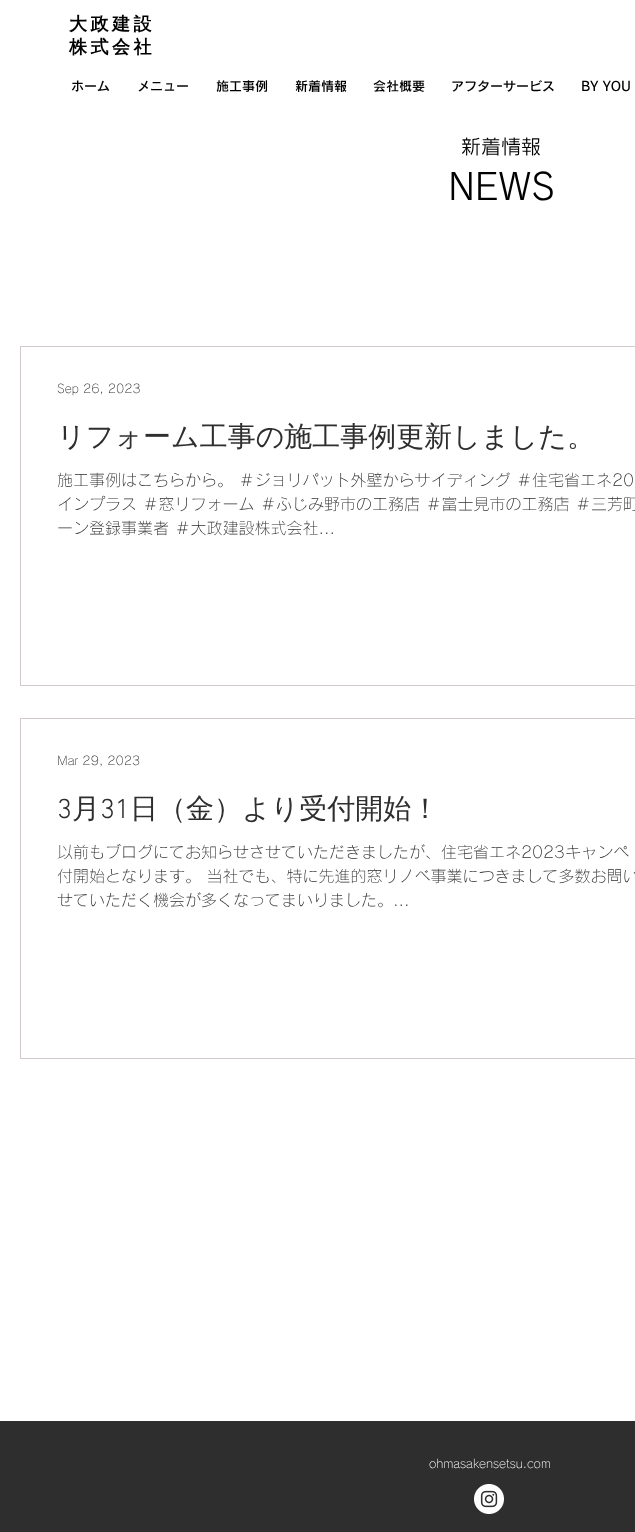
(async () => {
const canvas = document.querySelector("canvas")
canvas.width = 635
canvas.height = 1532
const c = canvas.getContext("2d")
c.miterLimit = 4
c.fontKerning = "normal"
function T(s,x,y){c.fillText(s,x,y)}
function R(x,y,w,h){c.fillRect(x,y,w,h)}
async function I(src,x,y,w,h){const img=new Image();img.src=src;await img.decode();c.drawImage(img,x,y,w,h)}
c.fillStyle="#fff"
R(0,0,635,1532)
c.letterSpacing="3.5px"
c.font="bold 18px WenQuanYi Zen Hei"
c.fillStyle="#000"
T("大政建設",69,30)
T("株式会社",69,53)
c.letterSpacing="0px"
c.font="600 13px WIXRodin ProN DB"
T("ホーム",71,91)
T("メニュー",137,91)
T("施工事例",216,91)
T("新着情報",295,91)
T("会社概要",373,91)
T("アフターサービス",451,91)
T("BY YOU",581,91)
c.font="500 20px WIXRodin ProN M"
T("新着情報",461,154)
c.font="500 36px WIXRodin ProN M"
T("NEWS",448,200)
c.strokeStyle="#d1cac9"
c.strokeRect(20.5,346.5,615,339)
c.font="300 12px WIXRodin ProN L"
c.fillStyle="#2f2e2e"
T("Sep 26, 2023",57,393)
c.font="500 28px WenQuanYi Zen Hei"
T("リフォーム工事の施工事例更新しました。",57,446)
c.font="300 16px WIXRodin ProN L"
T("施工事例はこちらから。 ＃ジョリパット外壁からサイディング ＃住宅省エネ20",57,486)
T("インプラス ＃窓リフォーム ＃ふじみ野市の工務店 ＃富士見市の工務店 ＃三芳町",57,510)
T("ーン登録事業者 ＃大政建設株式会社...",57,534)
c.strokeRect(20.5,718.5,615,340)
c.font="300 12px WIXRodin ProN L"
T("Mar 29, 2023",57,765)
c.font="300 28px 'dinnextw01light'"
T("3",57,818)
c.font="500 28px WenQuanYi Zen Hei"
T("月",72,818)
c.font="300 28px 'dinnextw01light'"
T("31",100,818)
c.font="500 28px WenQuanYi Zen Hei"
T("日（金）より受付開始！",130,818)
c.font="300 16px WIXRodin ProN L"
T("以前もブログにてお知らせさせていただきましたが、住宅省エネ2023キャンペ",57,858)
T("付開始となります。 当社でも、特に先進的窓リノベ事業につきまして多数お問い",57,882)
T("せていただく機会が多くなってまいりました。...",57,906)
R(0,1421,635,111)
c.font="300 12px WIXRodin ProN L"
c.fillStyle="#fff"
T("ohmasakensetsu.com",429,1468)
await I("1.png",474,1484,30,30)
})()
